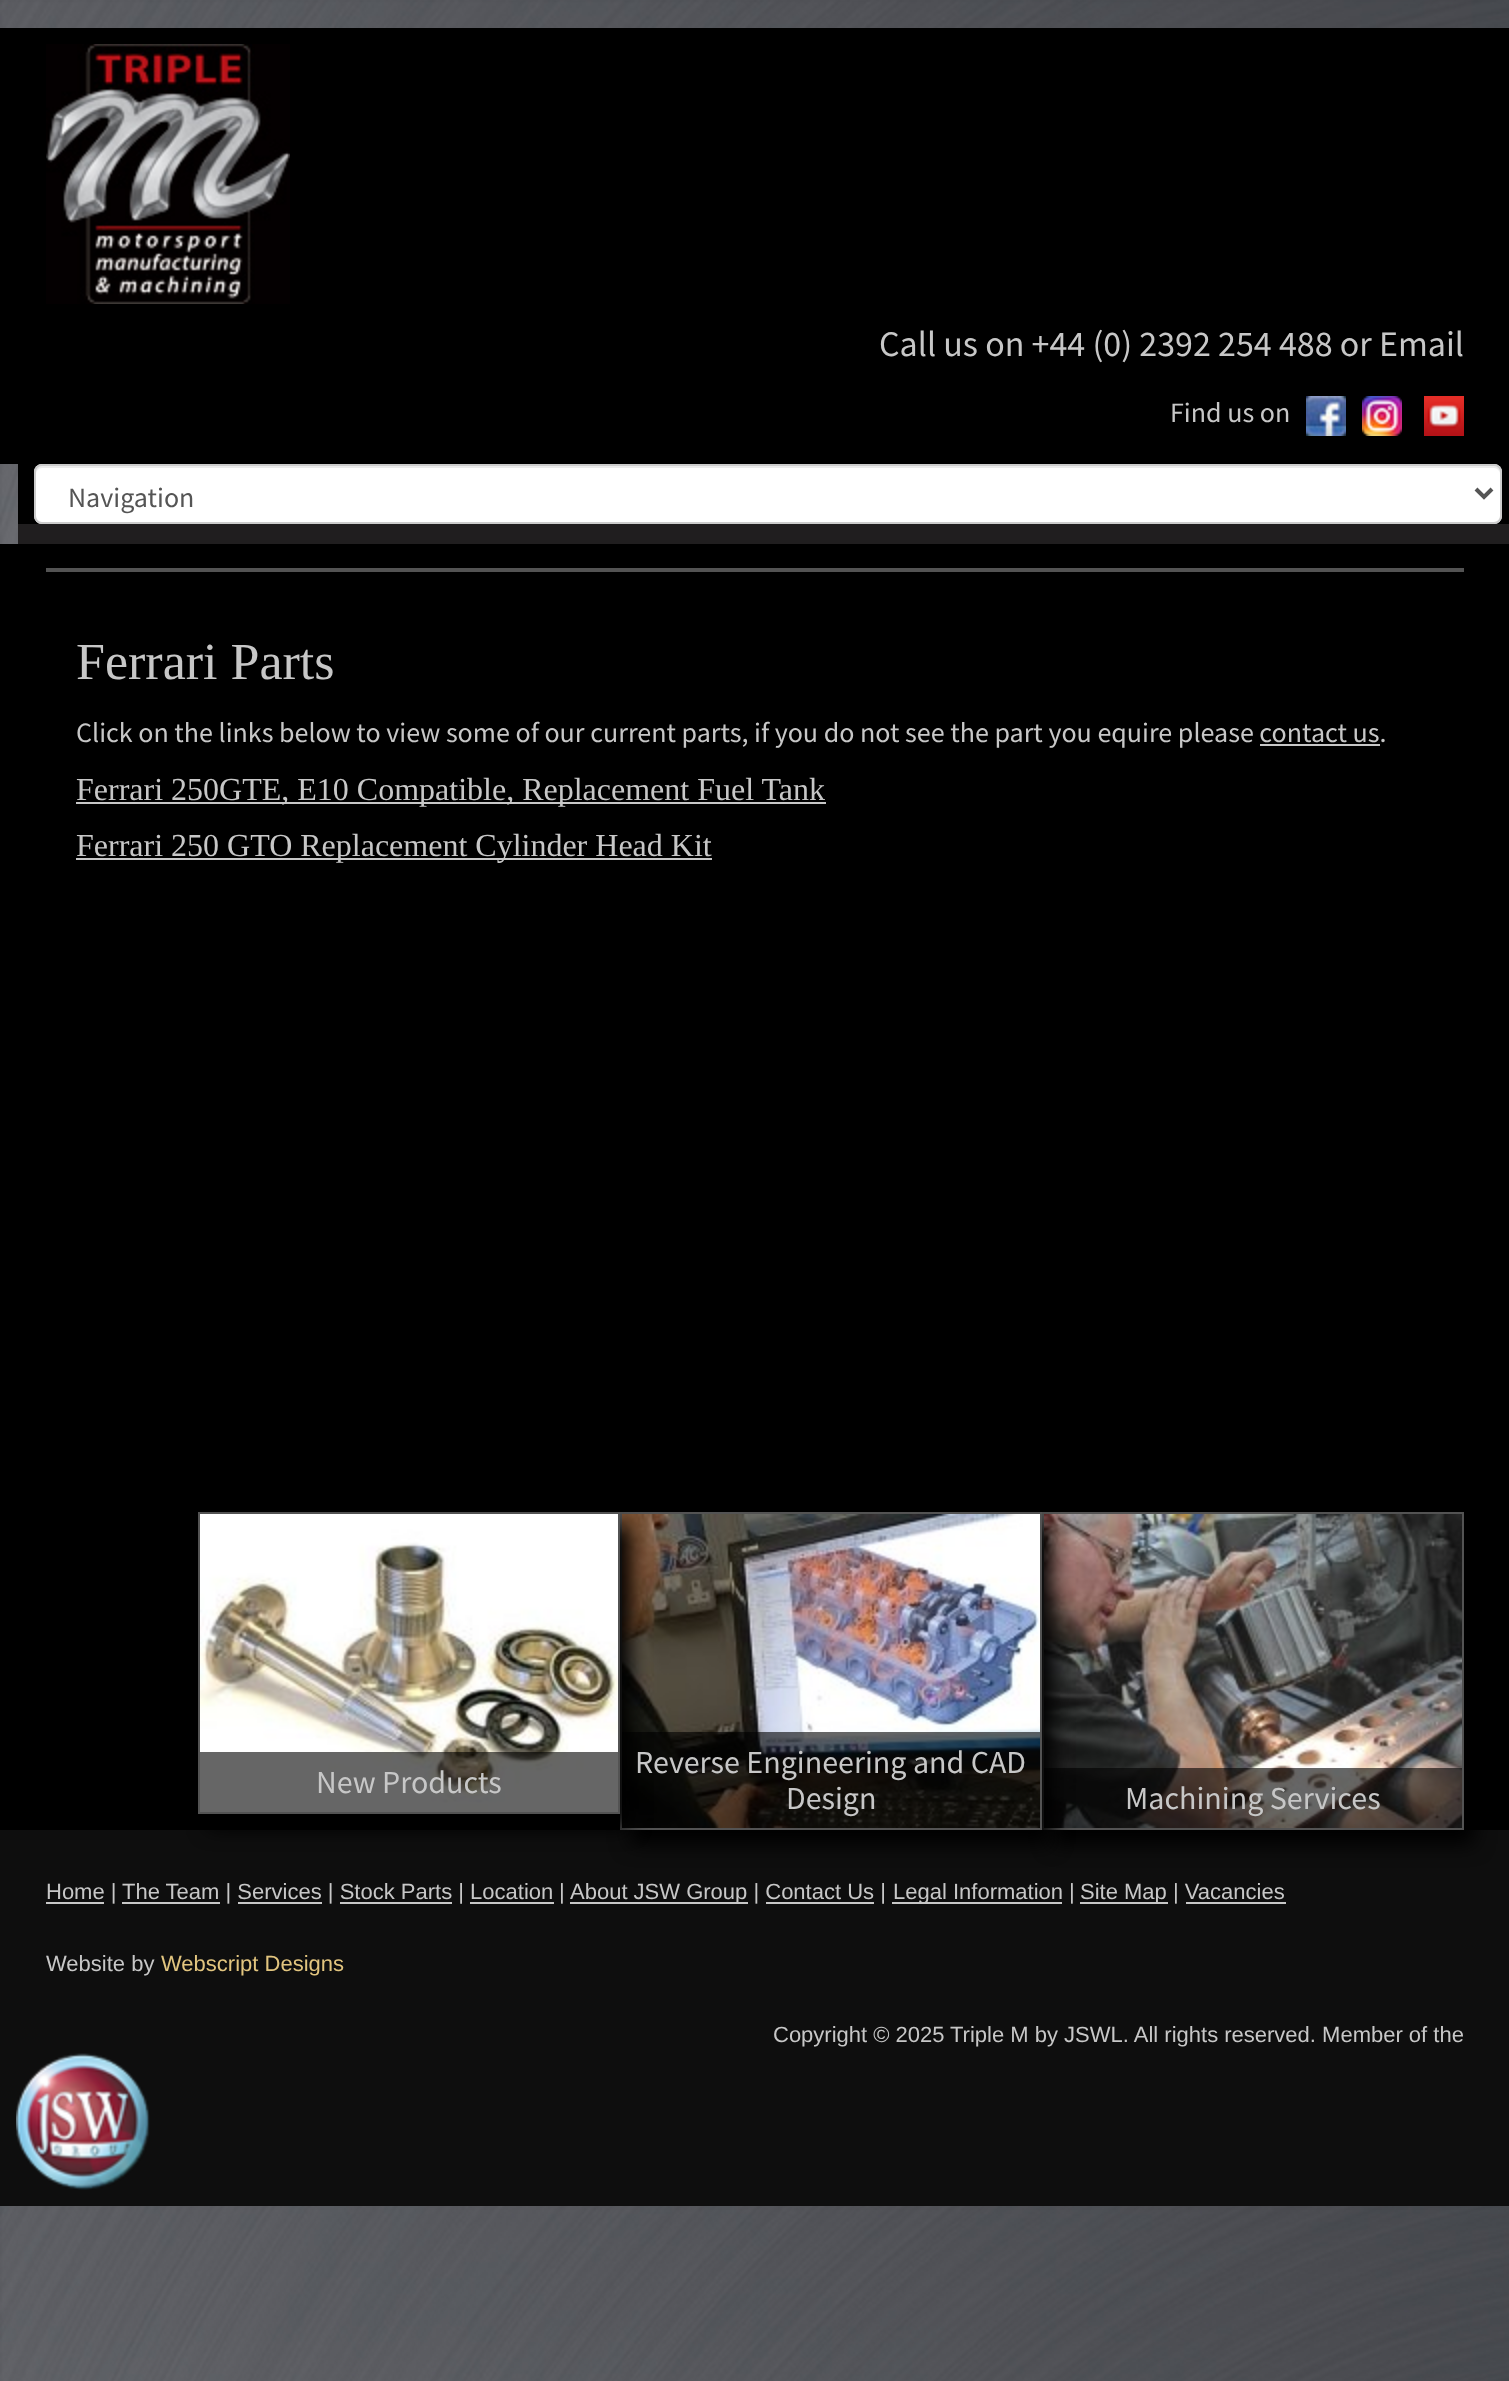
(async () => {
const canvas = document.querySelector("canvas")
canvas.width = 1509
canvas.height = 2381
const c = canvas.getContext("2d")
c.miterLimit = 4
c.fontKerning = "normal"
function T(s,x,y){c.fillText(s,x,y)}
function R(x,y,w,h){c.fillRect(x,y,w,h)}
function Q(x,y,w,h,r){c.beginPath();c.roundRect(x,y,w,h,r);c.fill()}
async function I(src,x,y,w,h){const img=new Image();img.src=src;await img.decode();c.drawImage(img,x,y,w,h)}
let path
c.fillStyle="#fff"
R(0,0,1509,2381)
await I("1.png",0,0,1509,2381)
c.fillStyle="#000"
R(0,28,1509,436)
await I("2.png",46,44,244,260)
c.font="36px Source Sans Pro"
c.fillStyle="#c7c7c7"
T("Call us on +44 (0) 2392 254 488 or Email",879,356)
c.font="28px Source Sans Pro"
T("Find us on",1170,422)
await I("3.png",1306,396,40,40)
await I("4.png",1362,396,40,40)
await I("5.png",1424,396,40,40)
c.fillStyle="#201e1f"
R(18,524,1491,20)
c.fillStyle="#000"
R(18,464,1491,60)
c.fillStyle="#fff"
Q(34,464,1468,60,8)
c.fillStyle="#ececec"
path = new Path2D("M42 468h1452c3 0 6 3 6 6c0-4-1-8-6-8h-1452c-5 0-6 4-6 8c0-3 3-6 6-6z")
c.fill(path)
c.beginPath()
c.roundRect(35,465,1466,58,7)
c.strokeStyle="#ccc"
c.lineWidth=2
c.stroke()
path = new Path2D("M1476 489l8 8l8-8")
c.strokeStyle="#555"
c.lineWidth=4
c.stroke(path)
c.fillStyle="#555"
T("Navigation",68,507)
c.fillStyle="#000"
R(0,544,1509,1286)
c.fillStyle="#535353"
R(46,568,1418,4)
c.font="52px Liberation Serif"
c.fillStyle="#c7c7c7"
T("Ferrari Parts",76,679)
c.font="28px Source Sans Pro"
T("Click on the links below to view some of our current parts, if you do not see the part you equire please contact us.",76,742)
R(1260,744,120,2)
R(76,802,750,2)
c.font="32px Liberation Serif"
T("Ferrari 250GTE, E10 Compatible, Replacement Fuel Tank",76,800)
R(76,858,636,2)
T("Ferrari 250 GTO Replacement Cylinder Head Kit",76,856)
c.fillStyle="#0e0e0e"
R(0,1830,1509,376)
c.fillStyle="#000"
c.filter="blur(10px)"
c.beginPath()
c.rect(1052,1526,422,318)
c.fill()
c.filter="none"
c.strokeStyle="#535353"
c.lineWidth=2
c.strokeRect(1043,1513,420,316)
await I("8.png",1044,1514,418,314)
c.fillStyle="#00000099"
R(1044,1768,418,60)
c.fillStyle="#000"
c.filter="blur(10px)"
c.beginPath()
c.rect(630,1526,422,318)
c.fill()
c.filter="none"
c.strokeRect(621,1513,420,316)
await I("7.png",622,1514,418,314)
c.fillStyle="#00000099"
R(622,1732,418,96)
c.fillStyle="#000"
c.filter="blur(10px)"
c.beginPath()
c.rect(208,1526,422,302)
c.fill()
c.filter="none"
c.strokeRect(199,1513,420,300)
await I("6.png",200,1514,418,298)
c.fillStyle="#00000099"
R(200,1752,418,60)
c.font="32px Source Sans Pro"
c.fillStyle="#c7c7c7"
T("New Products",316,1793)
T("Reverse Engineering and CAD",635,1773)
T("Design",786,1809)
T("Machining Services",1125,1809)
R(46,1902,58,2)
c.font="22px Liberation Sans"
T("Home |",46,1899)
R(122,1902,98,2)
T("The Team | Services | Stock Parts | Location",122,1899)
T("|",559,1899)
R(570,1902,178,2)
T("About JSW Group | Contact Us |",570,1899)
R(892,1902,170,2)
T("Legal Information |",893,1899)
R(1080,1902,88,2)
T("Site Map | Vacancies",1080,1899)
R(238,1902,84,2)
R(340,1902,112,2)
R(470,1902,84,2)
R(766,1902,108,2)
R(1186,1902,100,2)
T("Website by",46,1971)
c.fillStyle="#e2c57f"
T("Webscript Designs",161,1971)
c.fillStyle="#c7c7c7"
T("Copyright © 2025",773,2042)
T("Triple M by JSWL. All rights reserved. Member of the",950,2042)
await I("9.png",16,2053,134,137)
})()
